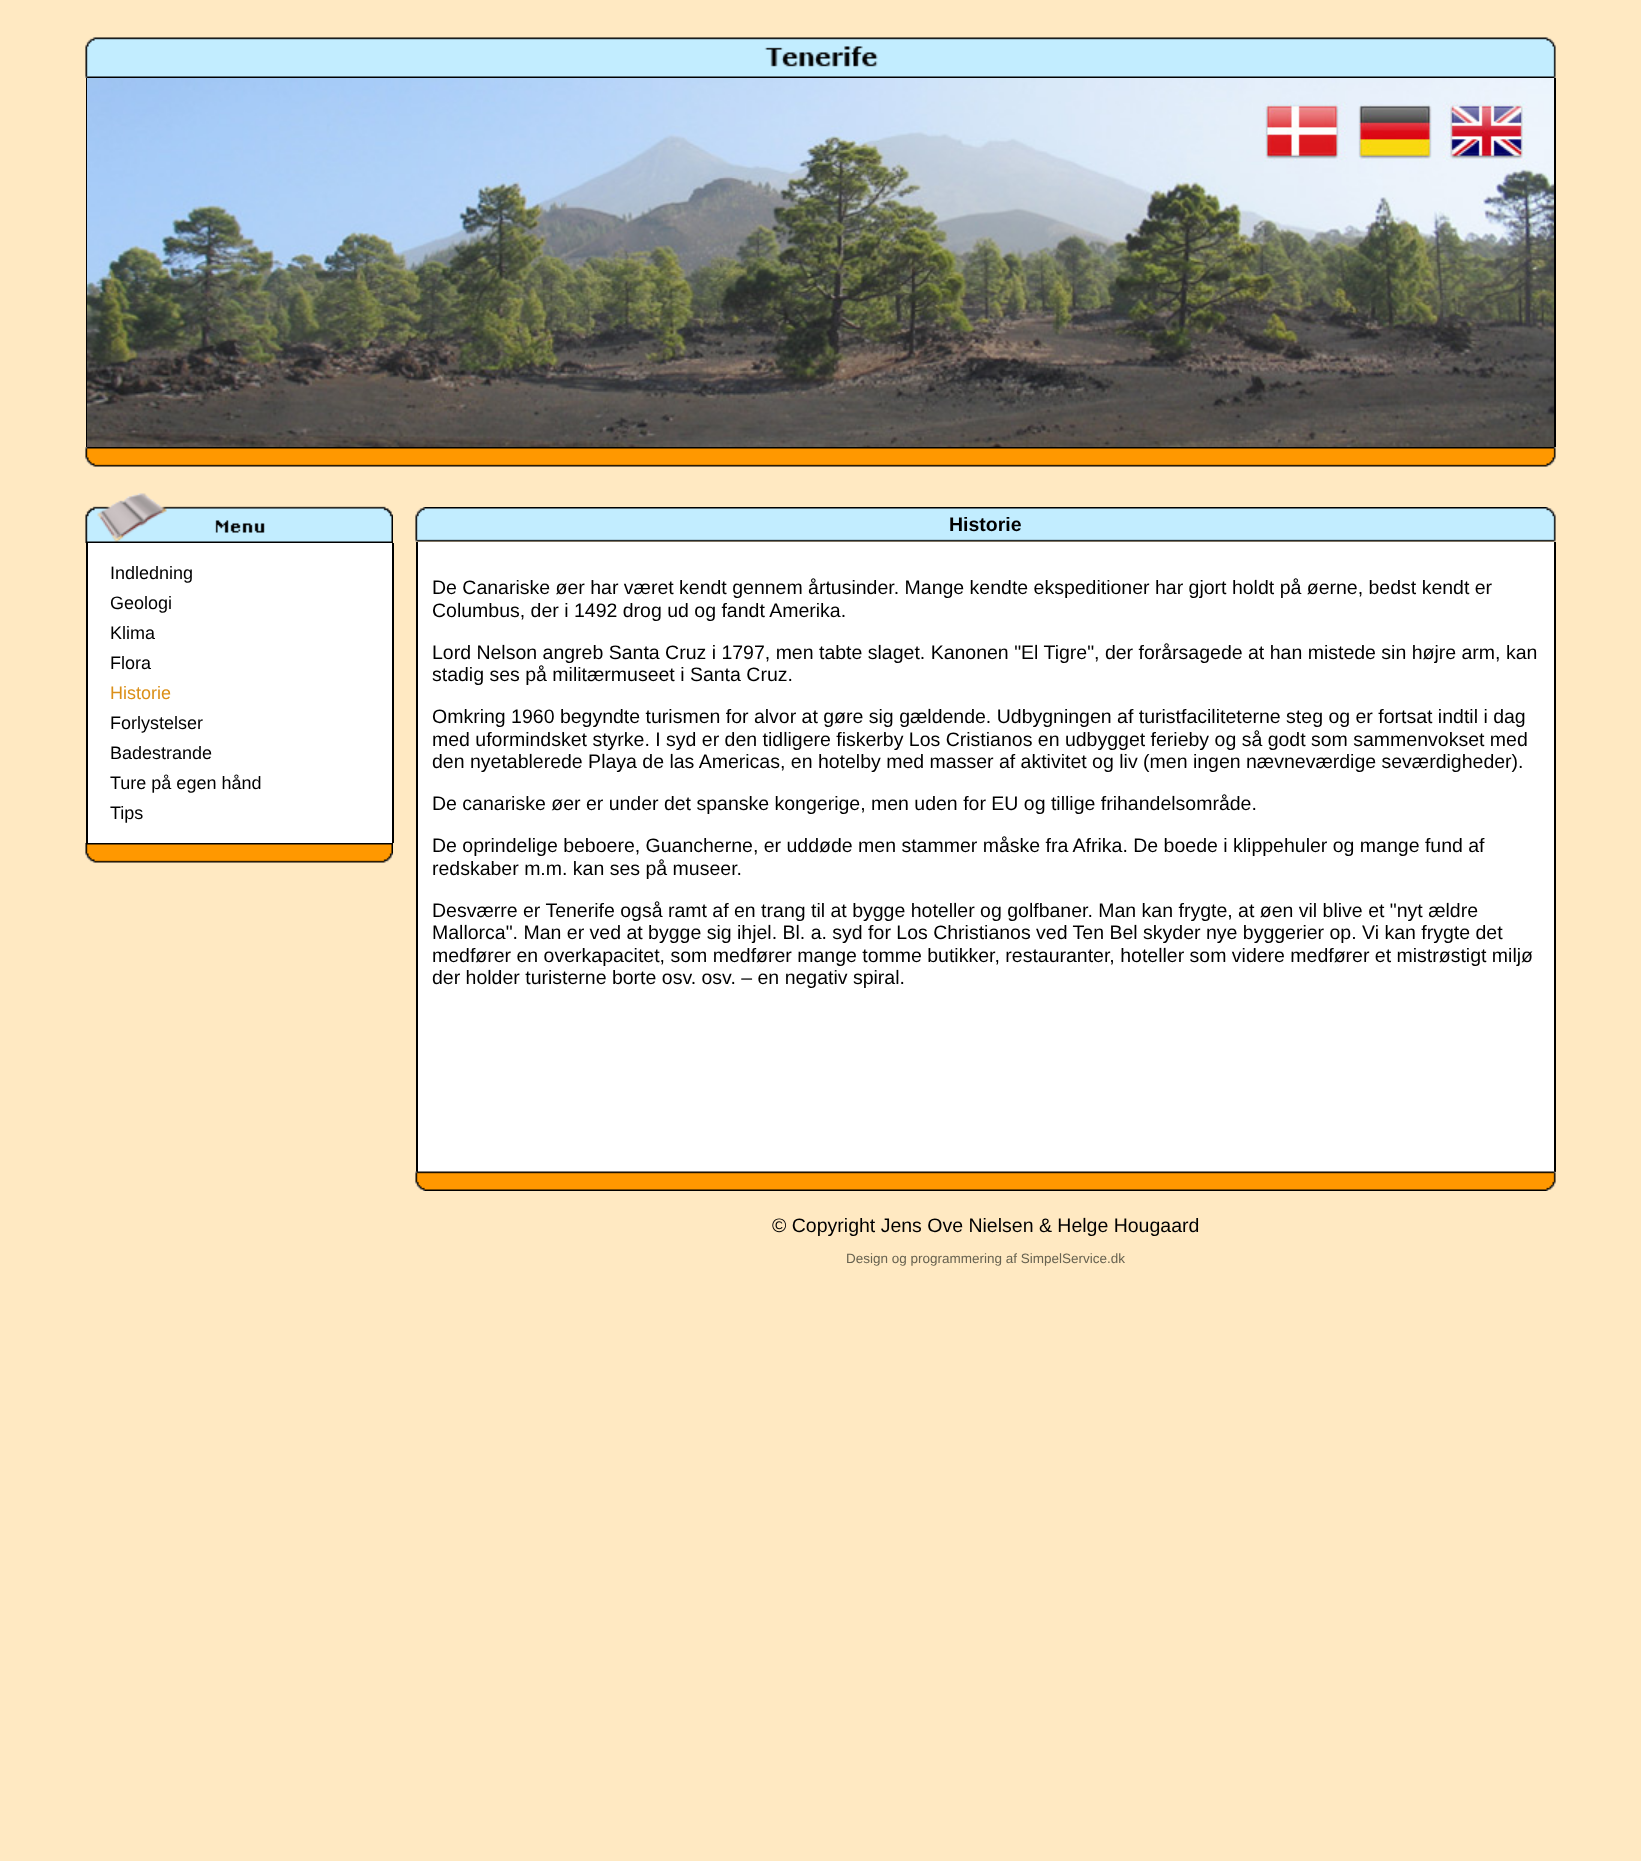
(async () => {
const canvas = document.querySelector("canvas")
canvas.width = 1641
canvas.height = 1861
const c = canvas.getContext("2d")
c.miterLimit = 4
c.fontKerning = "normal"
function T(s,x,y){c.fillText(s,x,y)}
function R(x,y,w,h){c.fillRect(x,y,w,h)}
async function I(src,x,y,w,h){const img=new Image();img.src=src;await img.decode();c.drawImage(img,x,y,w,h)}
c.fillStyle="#ffe9c2"
R(0,0,1641,1861)
await I("1.png",85,37,1471,41)
c.fillStyle="#000"
R(1554,78,2,369)
R(86,78,1,369)
await I("2.png",87,78,1467,369)
await I("3.png",85,447,1471,20)
await I("4.png",85,493,308,50)
c.fillStyle="#fff"
R(88,543,304,300)
c.fillStyle="#000"
R(392,543,2,300)
R(86,543,2,300)
c.font="18px Liberation Sans"
T("Indledning",110,579)
T("Geologi",110,609)
T("Klima",110,639)
T("Flora",110,669)
c.fillStyle="#db8f18"
T("Historie",110,699)
c.fillStyle="#000"
T("Forlystelser",110,729)
T("Badestrande",110,759)
T("Ture på egen hånd",110,789)
T("Tips",110,819)
await I("5.png",85,843,308,20)
await I("6.png",415,507,1141,35)
c.font="bold 19.5px Liberation Sans"
T("Historie",949,531)
c.fillStyle="#fff"
R(418,542,1136,630)
c.fillStyle="#000"
R(1554,542,2,630)
R(416,542,2,630)
c.font="19.5px Liberation Sans"
T("De Canariske øer har været kendt gennem årtusinder. Mange kendte ekspeditioner har gjort holdt på øerne, bedst kendt er",432,594)
T("Columbus, der i 1492 drog ud og fandt Amerika.",432,617)
T("Lord Nelson angreb Santa Cruz i 1797, men tabte slaget. Kanonen \"El Tigre\", der forårsagede at han mistede sin højre arm, kan",432,659)
T("stadig ses på militærmuseet i Santa Cruz.",432,681)
T("Omkring 1960 begyndte turismen for alvor at gøre sig gældende. Udbygningen af turistfaciliteterne steg og er fortsat indtil i dag",432,723)
T("med uformindsket styrke. I syd er den tidligere fiskerby Los Cristianos en udbygget ferieby og så godt som sammenvokset med",432,746)
T("den nyetablerede Playa de las Americas, en hotelby med masser af aktivitet og liv (men ingen nævneværdige seværdigheder).",432,768)
T("De canariske øer er under det spanske kongerige, men uden for EU og tillige frihandelsområde.",432,810)
T("De oprindelige beboere, Guancherne, er uddøde men stammer måske fra Afrika. De boede i klippehuler og mange fund af",432,852)
T("redskaber m.m. kan ses på museer.",432,875)
T("Desværre er Tenerife også ramt af en trang til at bygge hoteller og golfbaner. Man kan frygte, at øen vil blive et \"nyt ældre",432,917)
T("Mallorca\". Man er ved at bygge sig ihjel. Bl. a. syd for Los Christianos ved Ten Bel skyder nye byggerier op. Vi kan frygte det",432,939)
T("medfører en overkapacitet, som medfører mange tomme butikker, restauranter, hoteller som videre medfører et mistrøstigt miljø",432,962)
T("der holder turisterne borte osv. osv. – en negativ spiral.",432,984)
await I("7.png",415,1171,1141,20)
T("© Copyright Jens Ove Nielsen & Helge Hougaard",772,1232)
c.font="13.5px Liberation Sans"
c.fillStyle="#686351"
T("Design og programmering af SimpelService.dk",846,1263)
})()
